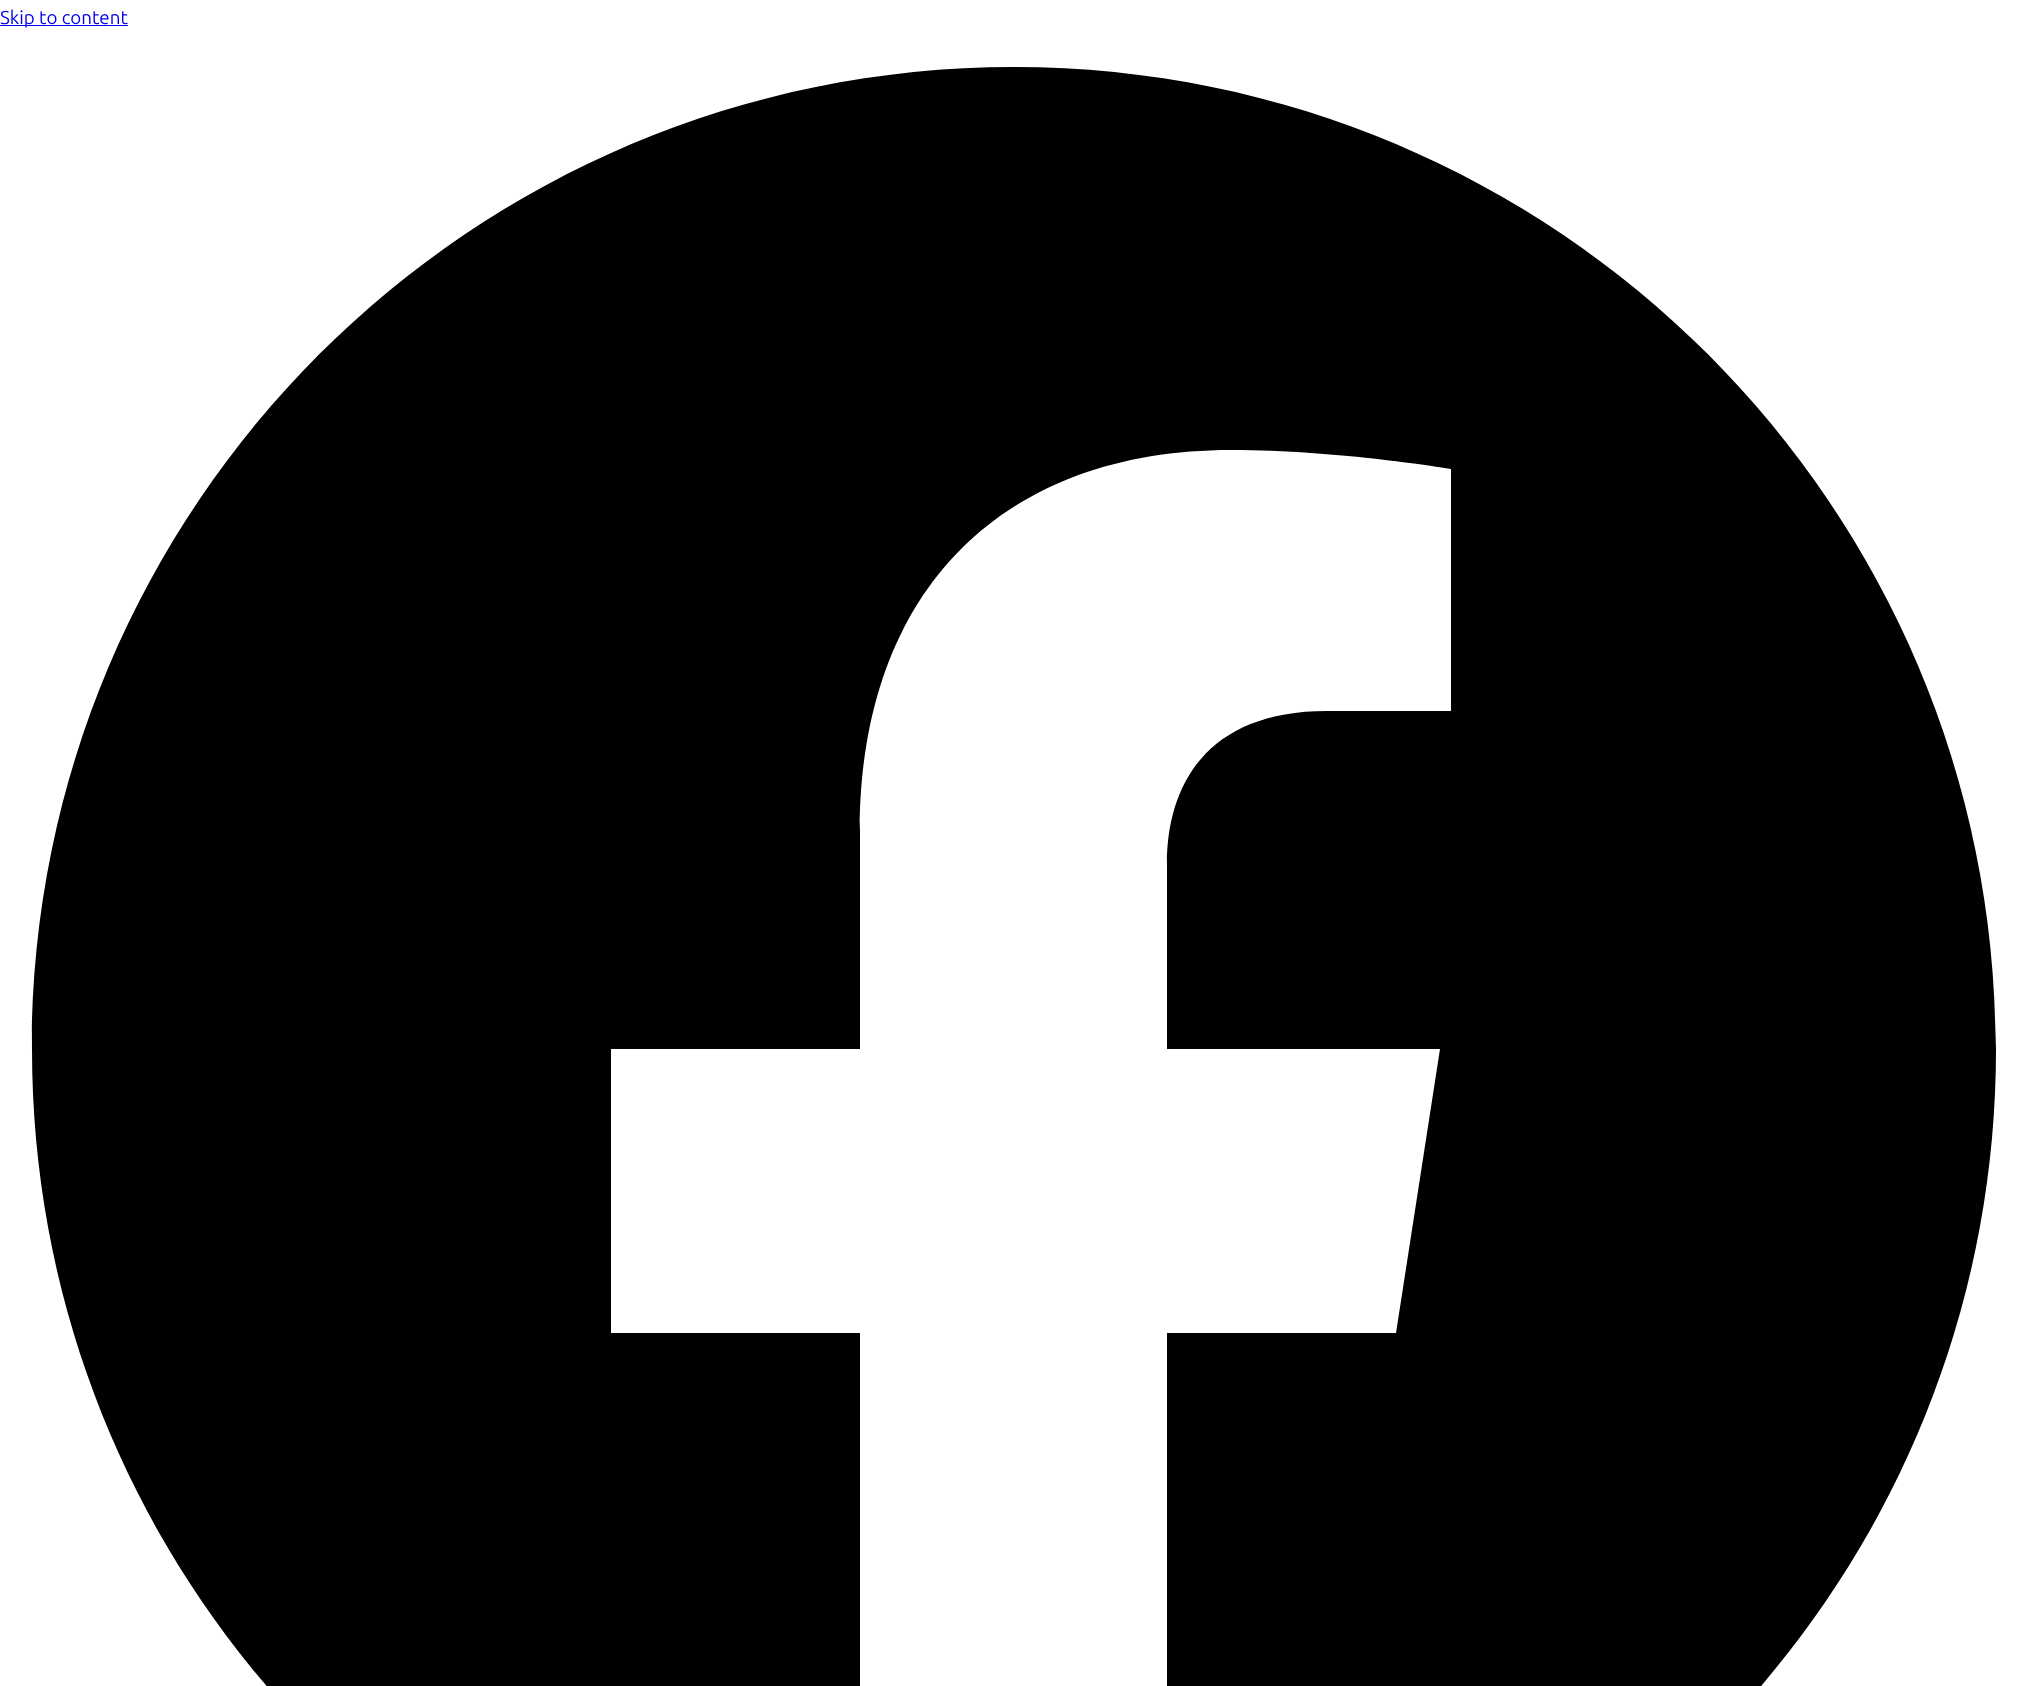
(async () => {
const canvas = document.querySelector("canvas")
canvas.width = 2027
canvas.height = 1686
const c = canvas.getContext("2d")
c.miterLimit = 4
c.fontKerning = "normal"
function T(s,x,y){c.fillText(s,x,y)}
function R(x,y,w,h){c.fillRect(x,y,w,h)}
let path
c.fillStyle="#fff"
R(0,0,2027,1686)
c.fillStyle="#00e"
R(0,25,128,1)
c.font="18.75px Ubuntu"
T("Skip to content",0,24)
c.fillStyle="#000"
path = new Path2D("M1996 1049c0-543-440-982-982-982c-543 0-982 439-982 982c0 490 359 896 828 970v-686h-249v-284h249v-217c0-246 147-382 371-382c108 0 220 19 220 19v242h-124c-122 0-160 76-160 153v185h273l-44 284h-229v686c470-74 829-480 829-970z")
c.fill(path)
})()
